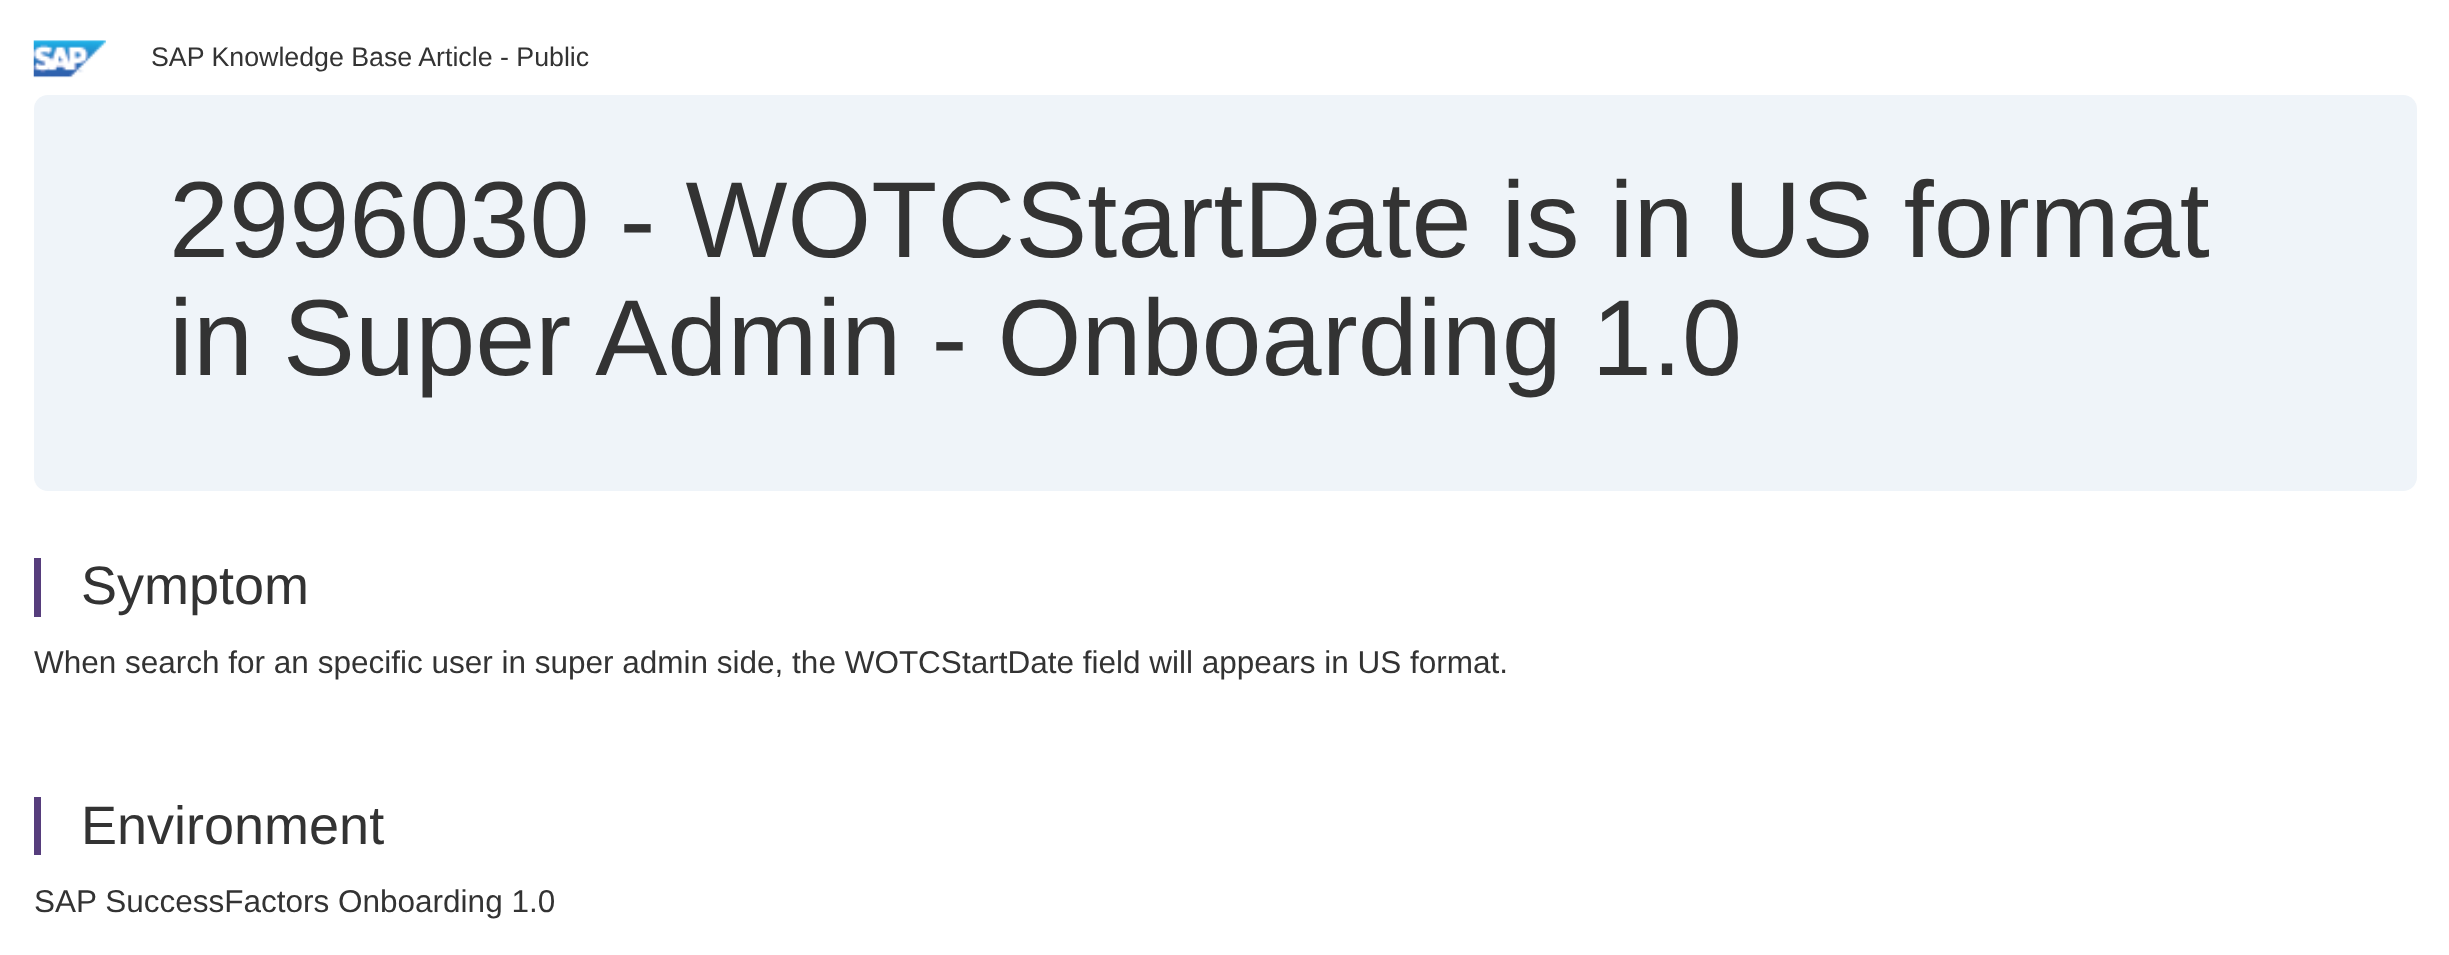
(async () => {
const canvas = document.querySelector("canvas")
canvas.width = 2449
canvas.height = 955
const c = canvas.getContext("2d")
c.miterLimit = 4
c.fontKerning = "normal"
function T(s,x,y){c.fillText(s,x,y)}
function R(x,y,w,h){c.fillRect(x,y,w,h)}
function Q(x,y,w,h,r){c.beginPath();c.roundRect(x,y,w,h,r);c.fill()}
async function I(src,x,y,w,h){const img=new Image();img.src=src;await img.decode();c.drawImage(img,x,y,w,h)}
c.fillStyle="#fff"
R(0,0,2449,955)
await I("1.png",33,40,73,38)
c.font="26.75px Liberation Sans"
c.fillStyle="#333"
T("SAP Knowledge Base Article - Public",151,66)
c.fillStyle="#eff4f9"
Q(34,95,2383,396,14)
c.font="108px Liberation Sans"
c.fillStyle="#333"
T("2996030 - WOTCStartDate is in US format",169,257)
T("in Super Admin - Onboarding 1.0",169,375)
c.fillStyle="#563d7c"
R(34,558,7,59)
c.font="54px Liberation Sans"
c.fillStyle="#333"
T("Symptom",81,604)
c.font="31.5px Liberation Sans"
T("When search for an specific user in super admin side, the WOTCStartDate field will appears in US format.",34,673)
c.fillStyle="#563d7c"
R(34,797,7,58)
c.font="54px Liberation Sans"
c.fillStyle="#333"
T("Environment",81,844)
c.font="31.5px Liberation Sans"
T("SAP SuccessFactors Onboarding 1.0",34,912)
})()
